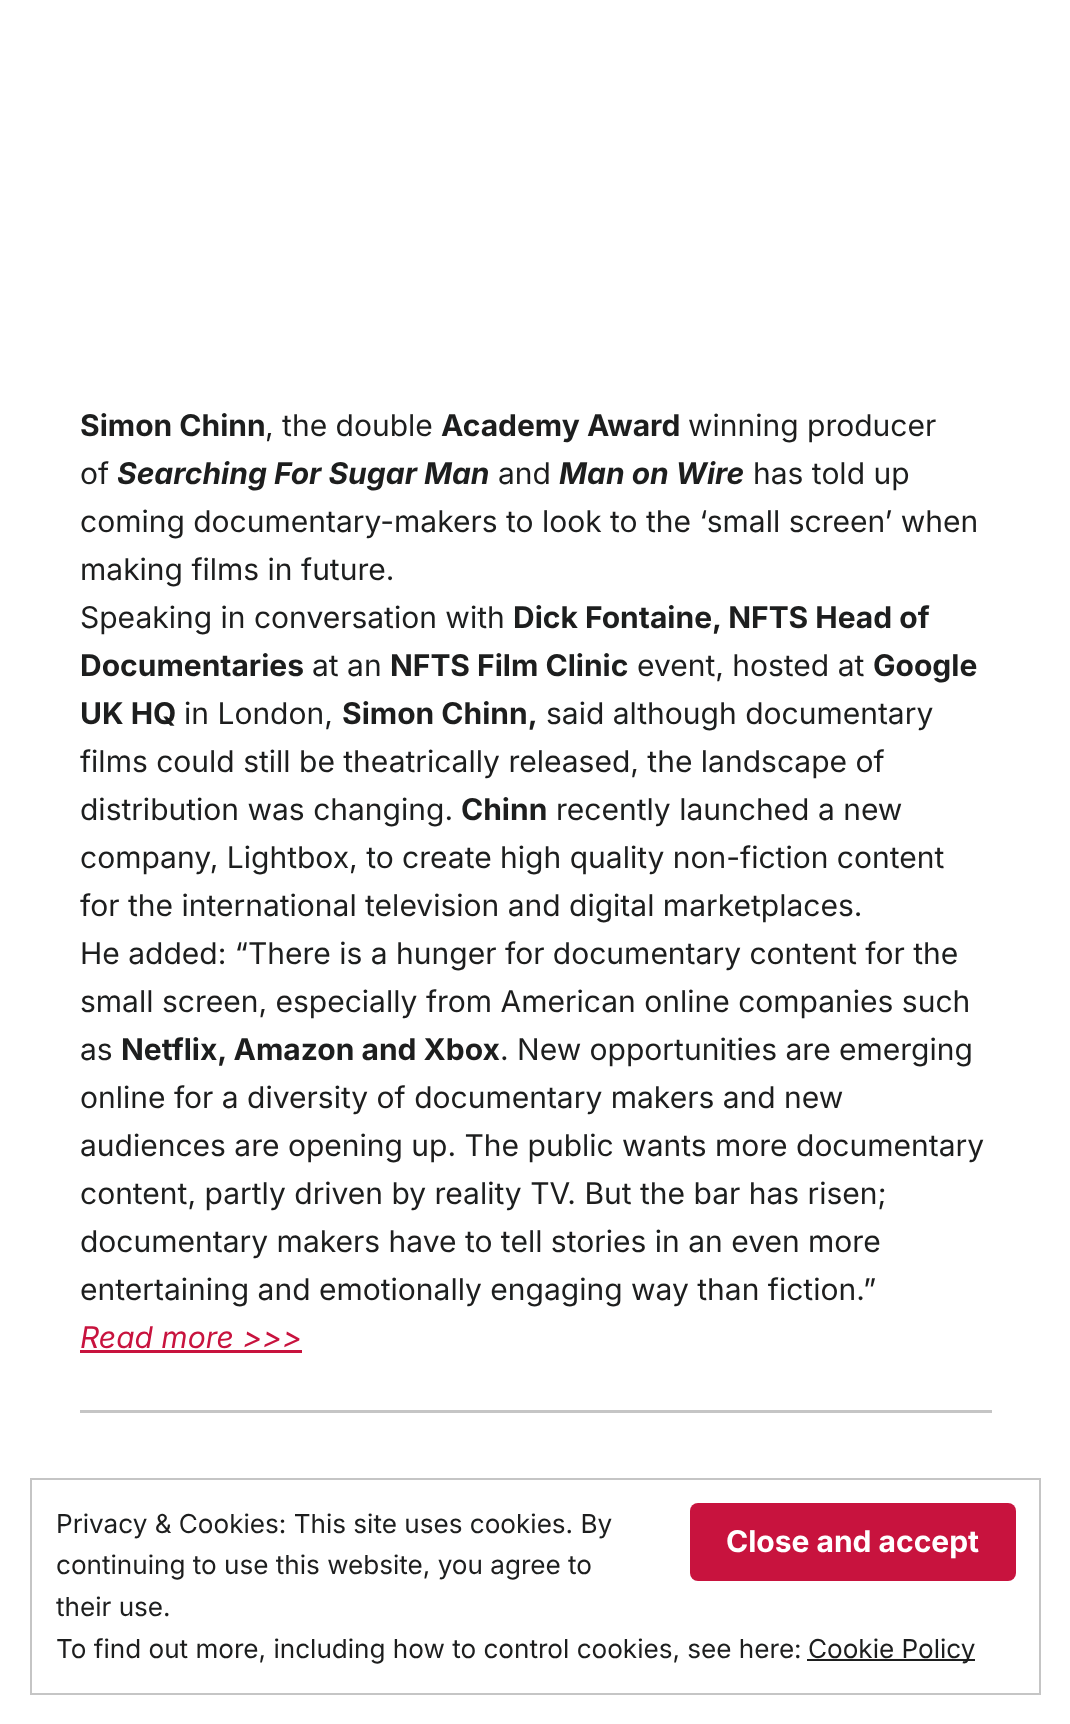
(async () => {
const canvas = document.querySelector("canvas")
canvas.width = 1070
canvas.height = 1724
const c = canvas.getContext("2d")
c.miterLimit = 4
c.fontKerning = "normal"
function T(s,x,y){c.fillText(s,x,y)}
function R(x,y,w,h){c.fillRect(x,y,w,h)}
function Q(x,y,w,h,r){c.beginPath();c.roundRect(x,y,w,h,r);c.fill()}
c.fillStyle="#fff"
R(0,0,1070,1724)
c.font="bold 30px Inter"
c.fillStyle="#1d1e1e"
T("Simon Chinn",80,436)
c.font="30px Inter"
T(", the double",265,436)
c.font="bold 30px Inter"
T("Academy Award",441,436)
c.font="30px Inter"
T("winning producer",688,436)
T("of",80,484)
c.font="italic bold 30px Inter"
T("Searching For Sugar Man",117,484)
c.font="30px Inter"
T("and",498,484)
c.font="italic bold 30px Inter"
T("Man on Wire",559,484)
c.font="30px Inter"
T("has told up",753,484)
T("coming documentary-makers to look to the ‘small screen’ when",80,532)
T("making films in future.",80,580)
T("Speaking in conversation with",80,628)
c.font="bold 30px Inter"
T("Dick Fontaine, NFTS Head of",513,628)
T("Documentaries",80,676)
c.font="30px Inter"
T("at an",312,676)
c.font="bold 30px Inter"
T("NFTS Film Clinic",390,676)
c.font="30px Inter"
T("event, hosted at",637,676)
c.font="bold 30px Inter"
T("Google",873,676)
T("UK HQ",80,724)
c.font="30px Inter"
T("in London,",184,724)
c.font="bold 30px Inter"
T("Simon Chinn,",342,724)
c.font="30px Inter"
T("said although documentary",546,724)
T("films could still be theatrically released, the landscape of",80,772)
T("distribution was changing.",80,820)
c.font="bold 30px Inter"
T("Chinn",461,820)
c.font="30px Inter"
T("recently launched a new",556,820)
T("company, Lightbox, to create high quality non-fiction content",80,868)
T("for the international television and digital marketplaces.",80,916)
T("He added: “There is a hunger for documentary content for the",80,964)
T("small screen, especially from American online companies such",80,1012)
T("as",80,1060)
c.font="bold 30px Inter"
T("Netflix, Amazon and Xbox",121,1060)
c.font="30px Inter"
T(". New opportunities are emerging",500,1060)
T("online for a diversity of documentary makers and new",80,1108)
T("audiences are opening up. The public wants more documentary",80,1156)
T("content, partly driven by reality TV. But the bar has risen;",80,1204)
T("documentary makers have to tell stories in an even more",80,1252)
T("entertaining and emotionally engaging way than fiction.”",80,1300)
c.font="italic 30px Inter"
c.fillStyle="#c8133e"
T("Read more >>>",80,1348)
R(80,1350,222,3)
c.fillStyle="#c5c5c5"
R(80,1410,912,3)
c.strokeStyle="#c5c5c5"
c.lineWidth=2
c.strokeRect(31,1479,1009,215)
c.font="26.1px Inter"
c.fillStyle="#1d1e1e"
T("Privacy & Cookies: This site uses cookies. By",56,1533)
c.fillStyle="#c8133e"
Q(690,1503,326,78,8)
c.font="bold 30px Inter"
c.fillStyle="#fff"
T("Close and accept",726,1552)
c.font="26.1px Inter"
c.fillStyle="#1d1e1e"
T("continuing to use this website, you agree to",56,1574)
T("their use.",56,1616)
T("To find out more, including how to control cookies, see here:",56,1658)
R(807,1659,168,2)
T("Cookie Policy",808,1658)
})()
